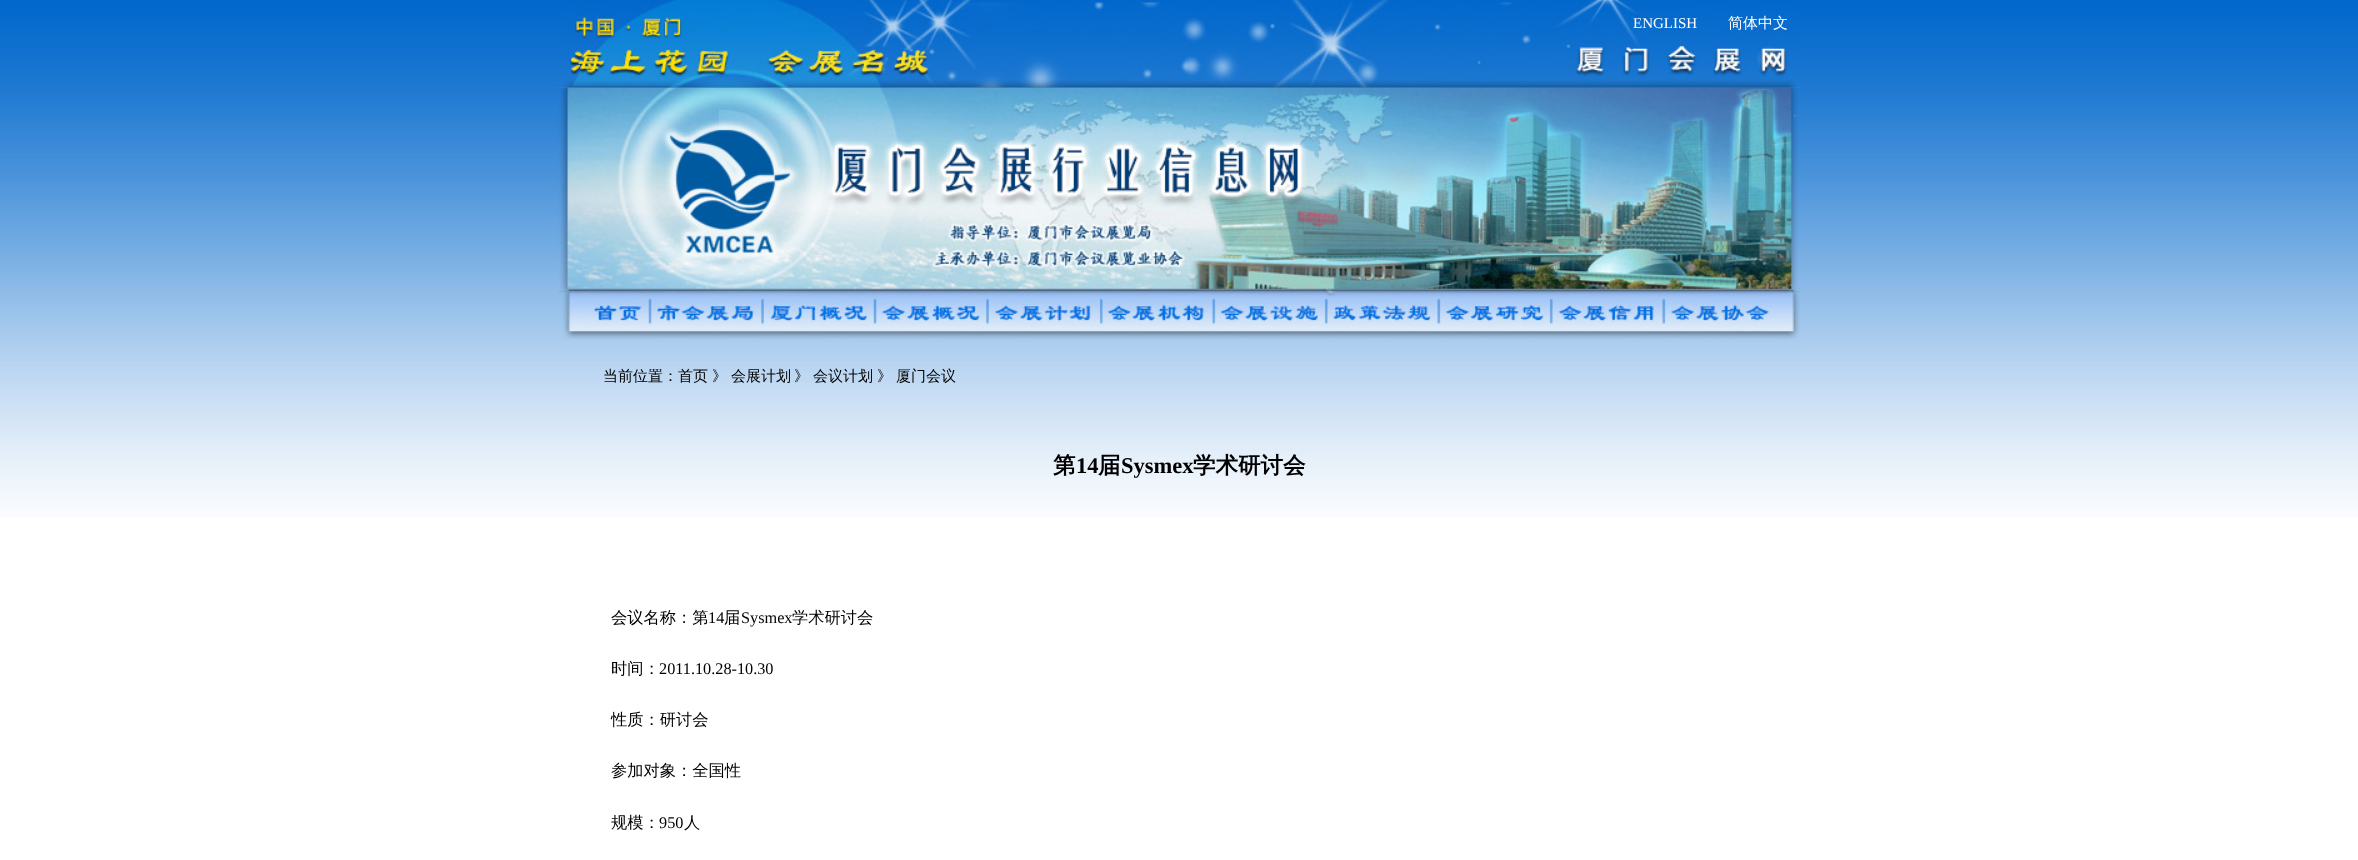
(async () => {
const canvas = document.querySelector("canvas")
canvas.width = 2358
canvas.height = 860
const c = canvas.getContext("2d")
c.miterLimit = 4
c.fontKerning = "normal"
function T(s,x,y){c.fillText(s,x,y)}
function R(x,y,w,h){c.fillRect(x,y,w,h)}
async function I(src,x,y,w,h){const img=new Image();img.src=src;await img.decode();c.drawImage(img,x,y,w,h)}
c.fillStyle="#fff"
R(0,0,2358,860)
await I("1.png",0,0,2358,517)
await I("2.png",562,0,1236,88)
c.font="15px Liberation Serif"
T("ENGLISH",1633,28)
c.font="500 15px WenQuanYi Zen Hei"
T("简体中文",1728,28)
await I("5.png",562,291,1238,49)
await I("3.png",559,87,1241,205)
await I("4.png",559,87,1241,205)
c.fillStyle="#000"
T("当前位置：首页",603,381)
T("》",712,381)
T("会展计划",731,381)
T("》",794,381)
T("会议计划",813,381)
T("》",877,381)
T("厦门会议",896,381)
c.font="bold 22.5px WenQuanYi Zen Hei"
T("第",1053,473)
c.font="bold 22.5px Liberation Serif"
T("14",1076,473)
c.font="bold 22.5px WenQuanYi Zen Hei"
T("届",1098,473)
c.font="bold 22.5px Liberation Serif"
T("Sysmex",1121,473)
c.font="bold 22.5px WenQuanYi Zen Hei"
T("学术研讨会",1193,473)
c.font="500 16.25px WenQuanYi Zen Hei"
T("会议名称：第",611,623)
c.font="16.25px Liberation Serif"
T("14",708,623)
c.font="500 16.25px WenQuanYi Zen Hei"
T("届",724,623)
c.font="16.25px Liberation Serif"
T("Sysmex",741,623)
c.font="500 16.25px WenQuanYi Zen Hei"
T("学术研讨会",792,623)
T("时间：",611,674)
c.font="16.25px Liberation Serif"
T("2011.10.28-10.30",659,674)
c.font="500 16.25px WenQuanYi Zen Hei"
T("性质：研讨会",611,725)
T("参加对象：全国性",611,776)
T("规模：",611,828)
c.font="16.25px Liberation Serif"
T("950",659,828)
c.font="500 16.25px WenQuanYi Zen Hei"
T("人",684,828)
})()
